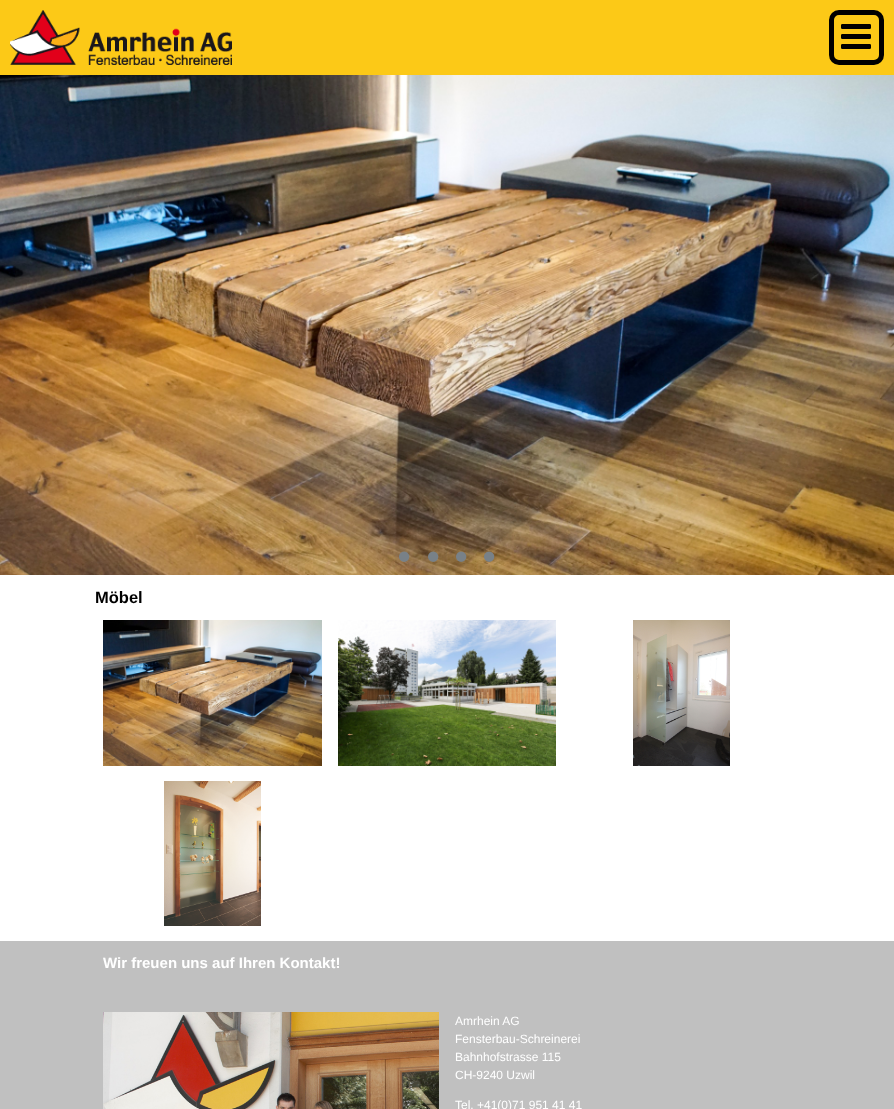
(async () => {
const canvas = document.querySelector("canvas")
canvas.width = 894
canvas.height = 1109
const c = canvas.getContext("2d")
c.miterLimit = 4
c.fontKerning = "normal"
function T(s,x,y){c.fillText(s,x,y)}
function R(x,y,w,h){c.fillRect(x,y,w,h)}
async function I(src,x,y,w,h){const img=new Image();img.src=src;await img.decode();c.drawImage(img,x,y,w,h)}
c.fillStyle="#fff"
R(0,0,894,1109)
c.fillStyle="#fcc917"
R(0,0,894,75)
await I("1.png",10,10,222,55)
c.beginPath()
c.roundRect(831.5,12.5,50,50,7.5)
c.strokeStyle="#000"
c.lineWidth=5
c.stroke()
await I("2.png",841,24,30,25)
await I("3.png",0,75,894,500)
await I("4.png",399,551,11,11)
await I("5.png",428,551,11,11)
await I("6.png",456,551,11,11)
await I("7.png",484,551,11,11)
c.font="bold 16.5px Liberation Sans"
c.fillStyle="#000"
T("Möbel",95,603)
await I("8.png",103,620,219,146)
await I("9.png",338,620,218,146)
await I("10.png",633,620,97,146)
await I("11.png",164,781,97,145)
c.fillStyle="#c0c0c0"
R(0,941,894,168)
c.font="bold 15px Liberation Sans"
c.fillStyle="#fff"
T("Wir freuen uns auf Ihren Kontakt!",103,968)
await I("12.png",103,1012,336,97)
c.font="12px Liberation Sans"
T("Amrhein AG",455,1025)
T("Fensterbau-Schreinerei",455,1043)
T("Bahnhofstrasse 115",455,1061)
T("CH-9240 Uzwil",455,1079)
T("Tel. +41(0)71 951 41 41",455,1109)
})()
